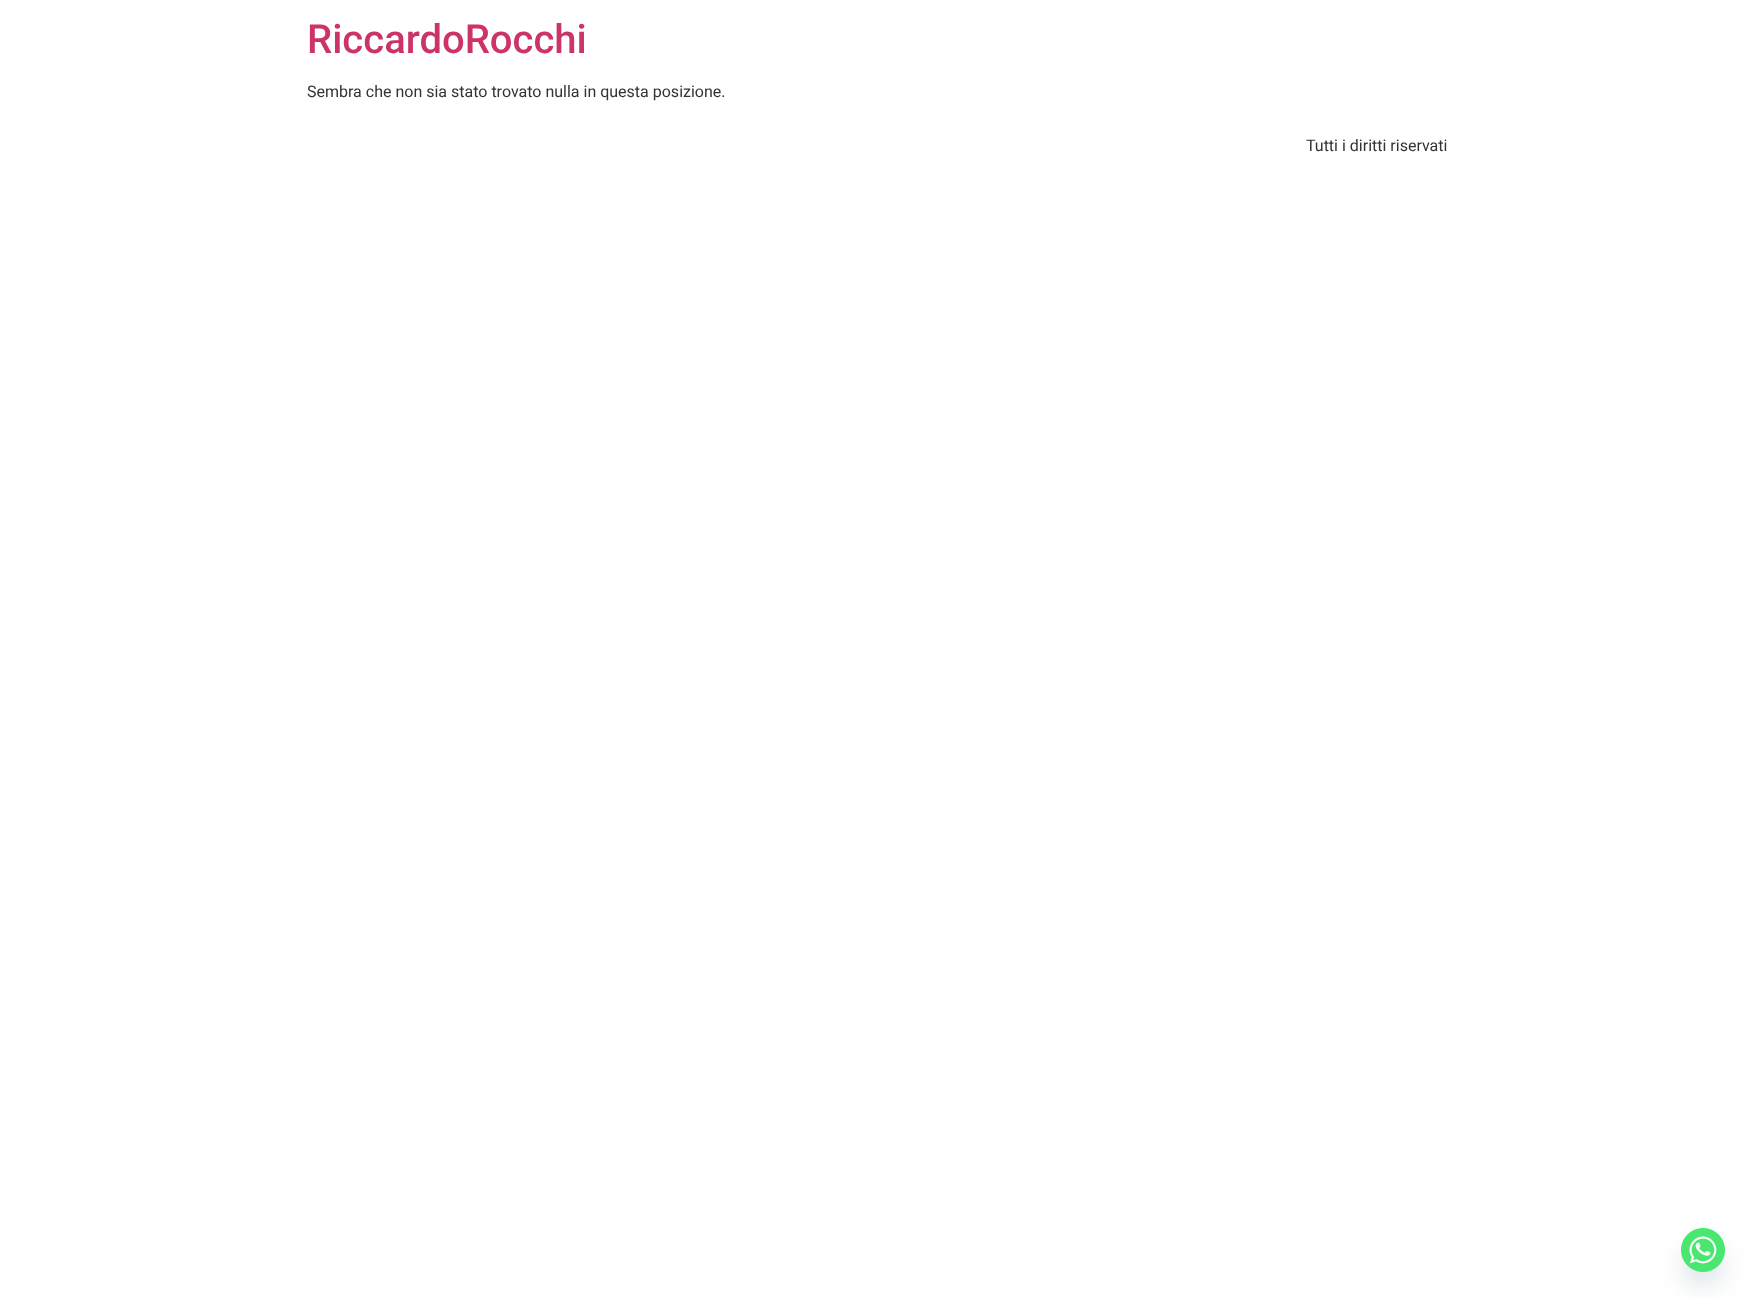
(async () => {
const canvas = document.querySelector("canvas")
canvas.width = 1754
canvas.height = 1297
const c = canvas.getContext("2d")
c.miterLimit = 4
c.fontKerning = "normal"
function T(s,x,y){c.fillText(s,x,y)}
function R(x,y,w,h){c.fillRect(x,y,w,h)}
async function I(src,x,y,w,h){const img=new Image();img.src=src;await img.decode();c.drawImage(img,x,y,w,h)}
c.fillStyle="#fff"
R(0,0,1754,1297)
c.font="500 40px Roboto"
c.fillStyle="#c36"
T("RiccardoRocchi",307,53)
c.font="16px Roboto"
c.fillStyle="#333"
T("Sembra che non sia stato trovato nulla in questa posizione.",307,97)
T("Tutti i diritti riservati",1306,151)
c.fillStyle="#49687e29"
c.filter="blur(12px)"
c.beginPath()
c.roundRect(1681,1244,44,44,22)
c.fill()
c.filter="none"
await I("1.png",1681,1228,44,44)
})()
